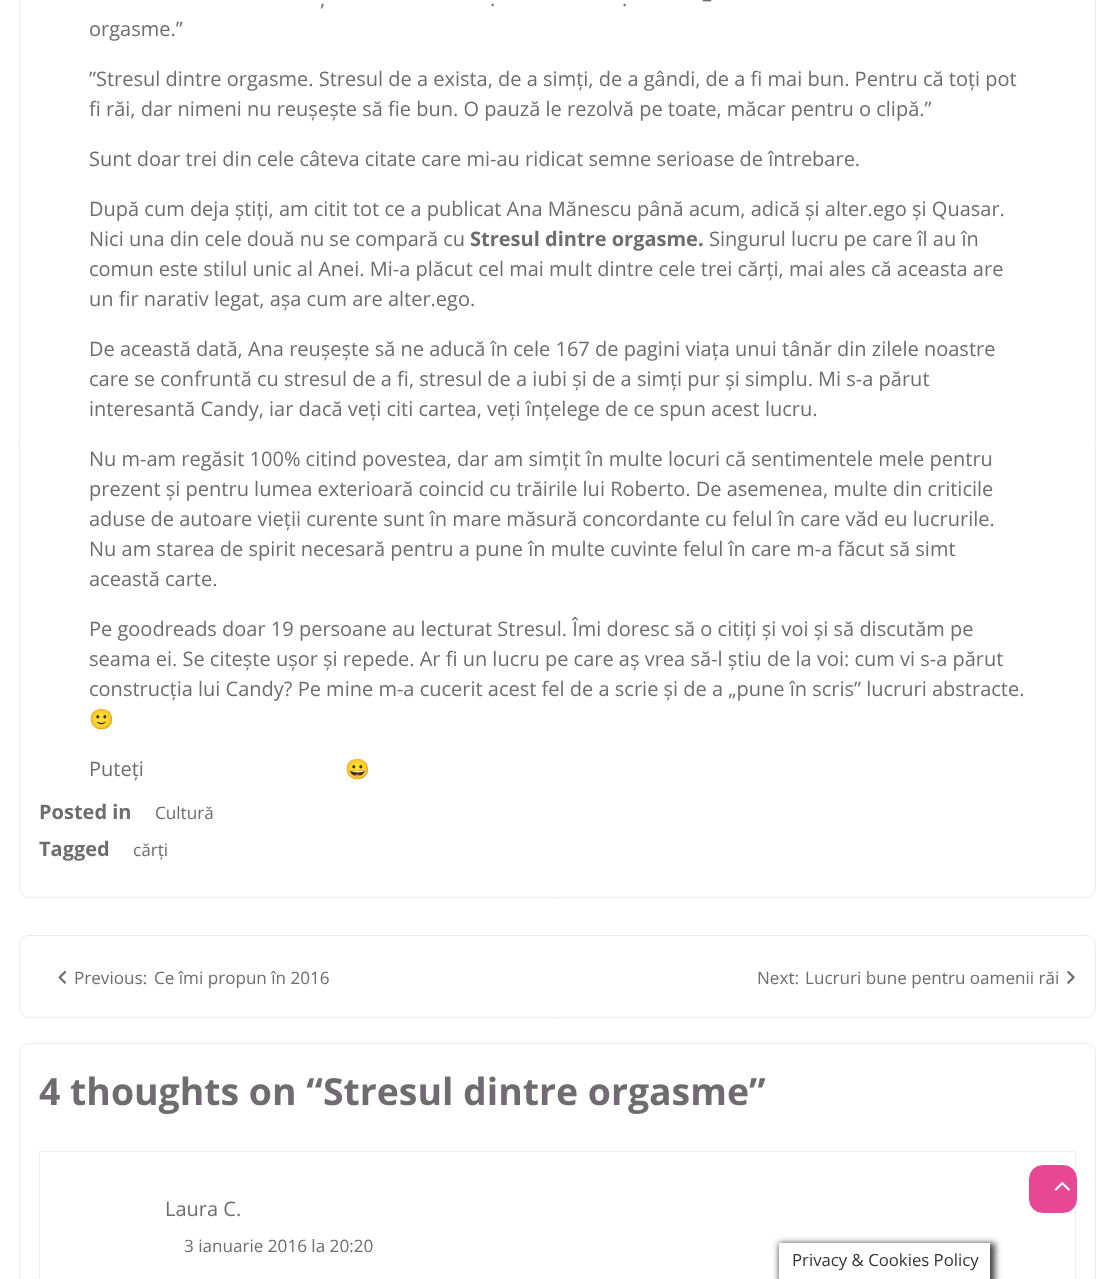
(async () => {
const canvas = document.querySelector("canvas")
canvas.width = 1114
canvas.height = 1279
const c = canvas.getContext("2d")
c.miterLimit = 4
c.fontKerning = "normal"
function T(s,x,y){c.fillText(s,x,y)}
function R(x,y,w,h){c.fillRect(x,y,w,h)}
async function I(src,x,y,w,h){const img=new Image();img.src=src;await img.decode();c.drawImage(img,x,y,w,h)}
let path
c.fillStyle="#fff"
R(0,0,1114,1279)
c.beginPath()
c.roundRect(19.5,-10.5,1076,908,9.5)
c.strokeStyle="#eaecef"
c.stroke()
c.font="20px Open Sans"
c.fillStyle="#6f6b70"
T("–",702,6)
T(",",320,6)
T(".",490,6)
T(".",622,6)
T("orgasme.”",89,36)
T("”Stresul dintre orgasme. Stresul de a exista, de a simți, de a gândi, de a fi mai bun. Pentru că toți pot",89,86)
T("fi răi, dar nimeni nu reușește să fie bun. O pauză le rezolvă pe toate, măcar pentru o clipă.”",89,116)
T("Sunt doar trei din cele câteva citate care mi-au ridicat semne serioase de întrebare.",89,166)
T("După cum deja știți, am citit tot ce a publicat Ana Mănescu până acum, adică și alter.ego și Quasar.",89,216)
T("Nici una din cele două nu se compară cu",89,246)
c.font="bold 20px Open Sans"
T("Stresul dintre orgasme.",470,246)
c.font="20px Open Sans"
T("Singurul lucru pe care îl au în",709,246)
T("comun este stilul unic al Anei. Mi-a plăcut cel mai mult dintre cele trei cărți, mai ales că aceasta are",89,276)
T("un fir narativ legat, așa cum are alter.ego.",89,306)
T("De această dată, Ana reușește să ne aducă în cele 167 de pagini viața unui tânăr din zilele noastre",89,356)
T("care se confruntă cu stresul de a fi, stresul de a iubi și de a simți pur și simplu. Mi s-a părut",89,386)
T("interesantă Candy, iar dacă veți citi cartea, veți înțelege de ce spun acest lucru.",89,416)
T("Nu m-am regăsit 100% citind povestea, dar am simțit în multe locuri că sentimentele mele pentru",89,466)
T("prezent și pentru lumea exterioară coincid cu trăirile lui Roberto. De asemenea, multe din criticile",89,496)
T("aduse de autoare vieții curente sunt în mare măsură concordante cu felul în care văd eu lucrurile.",89,526)
T("Nu am starea de spirit necesară pentru a pune în multe cuvinte felul în care m-a făcut să simt",89,556)
T("această carte.",89,586)
T("Pe goodreads doar 19 persoane au lecturat Stresul. Îmi doresc să o citiți și voi și să discutăm pe",89,636)
T("seama ei. Se citește ușor și repede. Ar fi un lucru pe care aș vrea să-l știu de la voi: cum vi s-a părut",89,666)
T("construcția lui Candy? Pe mine m-a cucerit acest fel de a scrie și de a „pune în scris” lucruri abstracte.",89,696)
c.font="20px Noto Color Emoji"
T("🙂",89,726)
c.font="20px Open Sans"
T("Puteți",89,776)
c.font="20px Noto Color Emoji"
T("😀",345,776)
c.font="bold 20px Open Sans"
T("Posted in",39,819)
c.font="17.1px Open Sans"
T("Cultură",155,819)
c.font="bold 20px Open Sans"
T("Tagged",39,856)
c.font="17.1px Open Sans"
T("cărți",133,856)
c.beginPath()
c.roundRect(19.5,935.5,1076,82,9.5)
c.stroke()
await I("1.png",58,971,8,13)
T("Previous:",74,984)
T("Ce îmi propun în 2016",154,984)
T("Next:",757,984)
T("Lucruri bune pentru oamenii răi",805,984)
await I("2.png",1067,970,8,14)
c.beginPath()
c.roundRect(19.5,1043.5,1076,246,9.5)
c.stroke()
c.font="bold 37.4px Open Sans"
T("4 thoughts on “Stresul dintre orgasme”",39,1105)
c.strokeStyle="#f1f1f1"
c.strokeRect(39.5,1151.5,1036,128)
c.font="20px Open Sans"
T("Laura C.",165,1216)
c.font="17.1px Open Sans"
T("3 ianuarie 2016 la 20:20",184,1252)
c.fillStyle="#e74795"
c.beginPath()
c.roundRect(1028.5,1164.5,49,49,14.5)
c.fill()
c.strokeStyle="#fff"
c.stroke()
await I("3.png",1054,1182,16,9)
c.save()
path = new Path2D("M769 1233h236v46h-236zm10 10h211v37h-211z")
c.clip(path,"evenodd")
c.fillStyle="#454545"
c.filter="blur(3px)"
c.beginPath()
c.rect(779,1243,216,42)
c.fill()
c.filter="none"
c.restore()
c.font="16.75px Open Sans"
c.fillStyle="#333"
T("Privacy & Cookies Policy",792,1266)
})()
